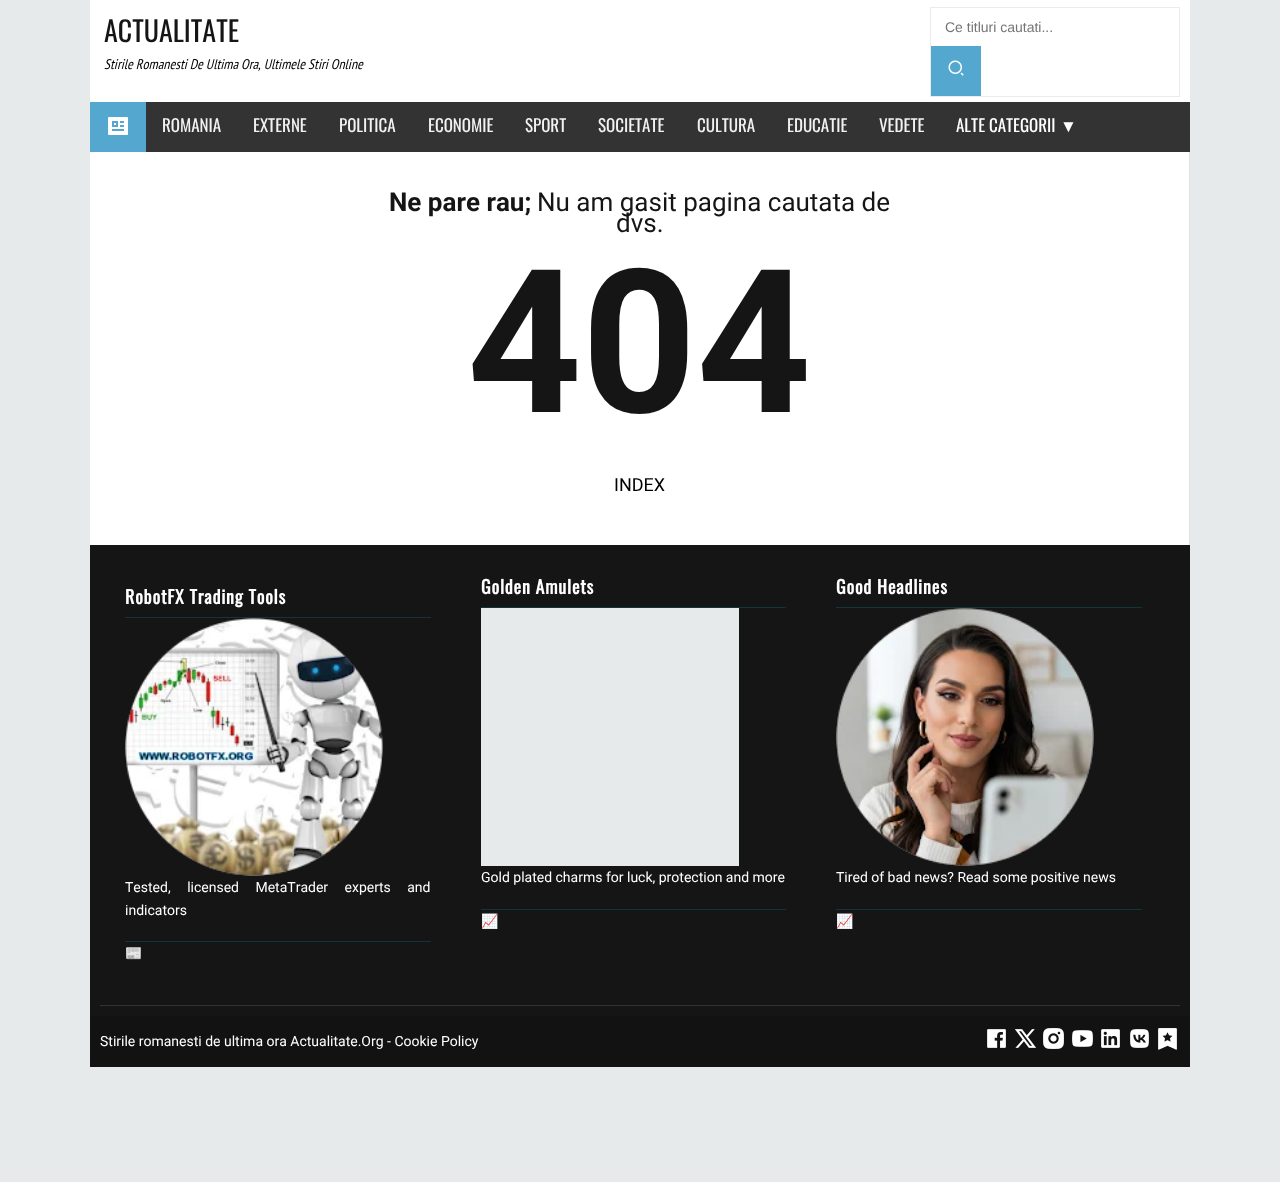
(async () => {
const canvas = document.querySelector("canvas")
canvas.width = 1280
canvas.height = 1182
const c = canvas.getContext("2d")
c.miterLimit = 4
c.fontKerning = "none"
function T(s,x,y){c.fillText(s,x,y)}
function R(x,y,w,h){c.fillRect(x,y,w,h)}
async function I(src,x,y,w,h){const img=new Image();img.src=src;await img.decode();c.drawImage(img,x,y,w,h)}
c.fillStyle="#e7eaeb"
R(0,0,1280,1182)
c.fillStyle="#fff"
R(90,0,1100,545)
c.font="28px Oswald"
c.fillStyle="#151515"
T("ACTUALITATE",104,42)
c.font="italic 14px PT Sans Narrow"
c.fillStyle="#000"
T("Stirile Romanesti De Ultima Ora, Ultimele Stiri Online",104,69)
c.strokeStyle="#ebebeb"
c.strokeRect(930.5,7.5,249,89)
c.font="14px Liberation Sans"
c.fillStyle="#757575"
T("Ce titluri cautati...",945,32)
c.fillStyle="#54a8d0"
R(931,46,50,50)
await I("1.png",948,60,16,16)
c.fillStyle="#333"
R(146,102,1044,50)
c.fillStyle="#54a8d0"
R(90,102,56,50)
await I("2.png",108,117,20,18)
c.font="17px Oswald"
c.fillStyle="#f2f2f2"
T("ROMANIA",162,132)
T("EXTERNE",253,132)
T("POLITICA",339,132)
T("ECONOMIE",428,132)
T("SPORT",525,132)
T("SOCIETATE",598,132)
T("CULTURA",697,132)
T("EDUCATIE",787,132)
T("VEDETE",879,132)
c.fillStyle="#fff"
T("ALTE CATEGORII",956,132)
c.font="17px Liberation Serif"
T("▼",1060,132)
c.fillStyle="#e0e0e0"
R(1189,152,1,393)
c.font="bold 26px Roboto"
c.fillStyle="#151515"
T("Ne pare rau;",389,211)
c.font="26px Roboto"
T("Nu am gasit pagina cautata de",537,211)
T("dvs.",616,232)
c.font="bold 200px Roboto"
T("404",467,412)
c.font="18px Roboto"
c.fillStyle="#000"
T("INDEX",614,491)
c.fillStyle="#151515"
R(90,545,1100,471)
c.fillStyle="#333"
R(100,1005,1080,1)
c.fillStyle="#113538"
R(125,617,306,1)
c.letterSpacing="0.8px"
c.font="bold 18px Oswald"
c.fillStyle="#fff"
T("RobotFX Trading Tools",125,604)
await I("3.png",125,618,258,258)
c.letterSpacing="0px"
c.wordSpacing="13px"
c.font="14px Roboto"
T("Tested, licensed MetaTrader experts and",125,892)
c.wordSpacing="0px"
T("indicators",125,915)
c.fillStyle="#113538"
R(125,941,306,1)
c.font="14px Noto Color Emoji"
c.fillStyle="#4a4a4b"
T("📰",125,958)
c.fillStyle="#113538"
R(481,607,305,1)
c.letterSpacing="0.8px"
c.font="bold 18px Oswald"
c.fillStyle="#fff"
T("Golden Amulets",481,594)
c.fillStyle="#e7eaeb"
R(481,608,258,258)
c.letterSpacing="0px"
c.font="14px Roboto"
c.fillStyle="#fff"
T("Gold plated charms for luck, protection and more",481,882)
c.fillStyle="#113538"
R(481,909,305,1)
c.font="14px Noto Color Emoji"
c.fillStyle="#4a4a4b"
T("📈",481,926)
c.fillStyle="#113538"
R(836,607,306,1)
c.letterSpacing="0.8px"
c.font="bold 18px Oswald"
c.fillStyle="#fff"
T("Good Headlines",836,594)
await I("4.png",836,608,258,258)
c.letterSpacing="0px"
c.font="14px Roboto"
T("Tired of bad news? Read some positive news",836,882)
c.fillStyle="#113538"
R(836,909,306,1)
c.font="14px Noto Color Emoji"
c.fillStyle="#4a4a4b"
T("📈",836,926)
c.fillStyle="#121212"
R(90,1016,1100,51)
c.font="14px Roboto"
c.fillStyle="#fff"
T("Stirile romanesti de ultima ora Actualitate.Org - Cookie Policy",100,1046)
await I("5.png",987,1029,19,19)
await I("6.png",1015,1029,21,19)
await I("7.png",1043,1028,21,21)
await I("8.png",1072,1030,21,17)
await I("9.png",1101,1029,19,19)
await I("10.png",1130,1029,19,19)
await I("11.png",1158,1028,19,22)
})()
